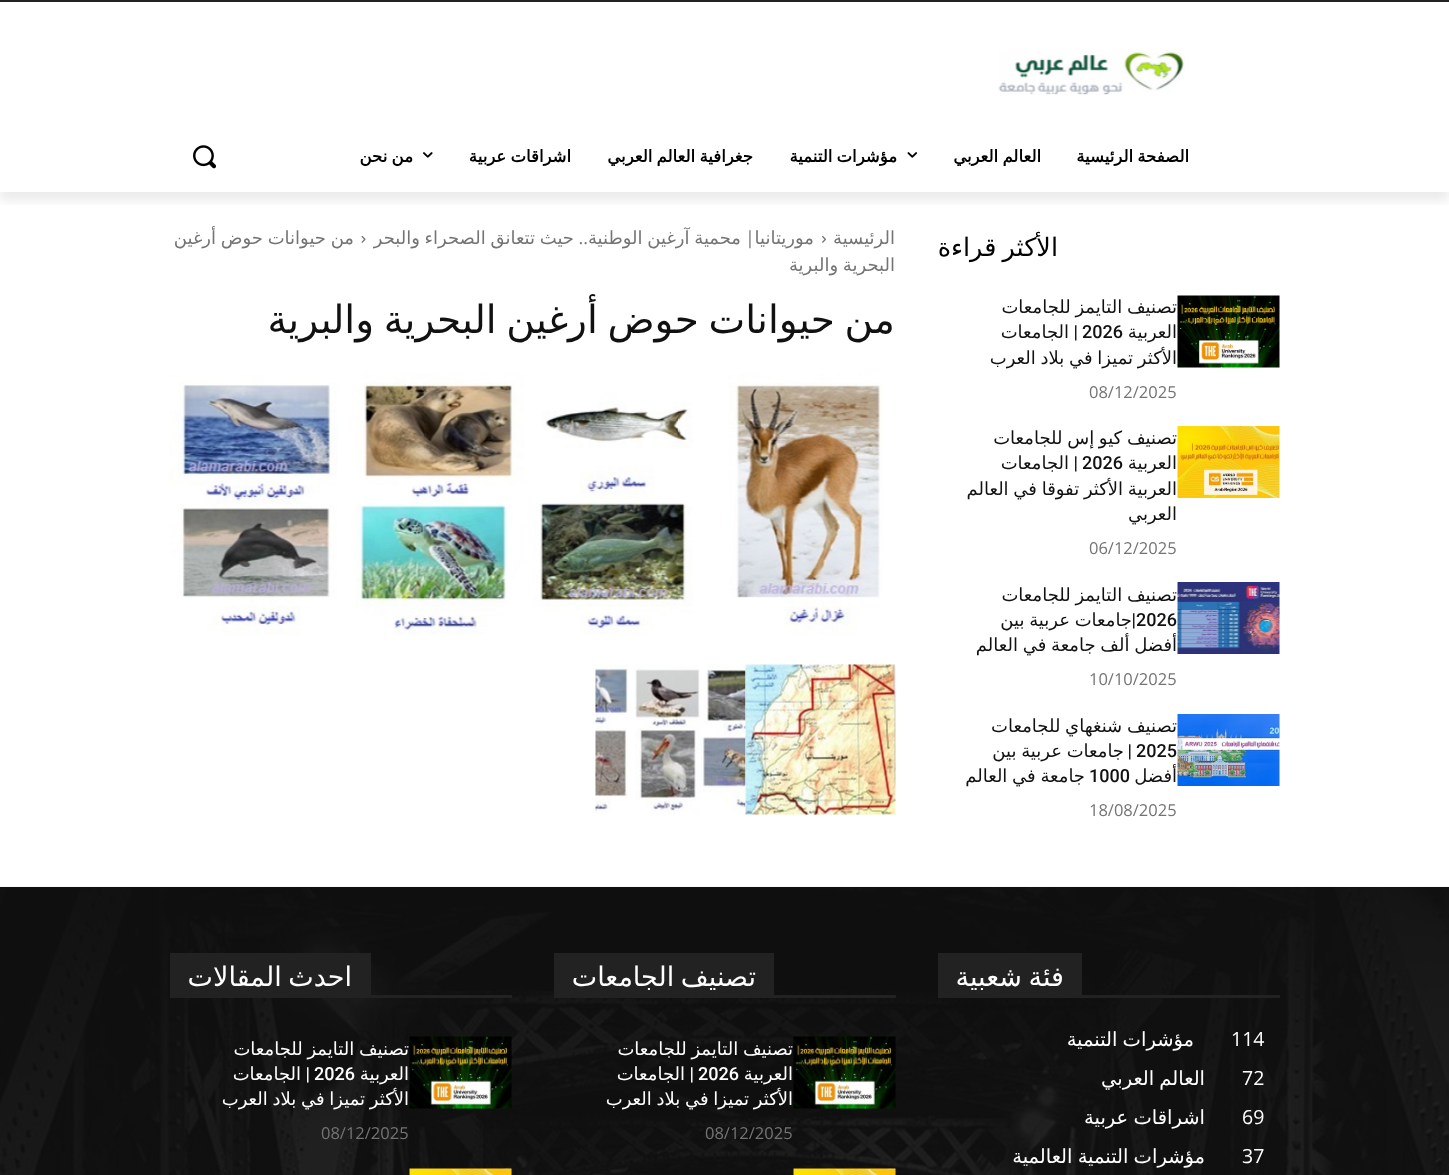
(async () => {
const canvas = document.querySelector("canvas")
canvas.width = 1449
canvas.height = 1175
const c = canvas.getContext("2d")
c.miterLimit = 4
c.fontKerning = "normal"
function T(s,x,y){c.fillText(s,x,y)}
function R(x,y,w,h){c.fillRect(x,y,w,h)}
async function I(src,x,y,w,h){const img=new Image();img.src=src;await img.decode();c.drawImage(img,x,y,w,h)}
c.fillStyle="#fff"
R(0,0,1449,1175)
c.fillStyle="#222"
R(0,0,1449,2)
await I("1.png",998,50,187,45)
c.save()
c.beginPath()
c.rect(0,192,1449,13)
c.clip()
c.fillStyle="#00000014"
c.filter="blur(6px)"
c.beginPath()
c.rect(0,9,1449,192)
c.fill()
c.filter="none"
c.restore()
c.wordSpacing="-1px"
c.direction="rtl"
c.font="bold 16.5px DejaVu Sans"
c.fillStyle="#000"
T("الصفحة الرئيسية",1189,162)
T("العالم العربي",1041,162)
await I("2.png",907,152,10,6)
T("مؤشرات التنمية",897,162)
T("جغرافية العالم العربي",753,162)
T("اشراقات عربية",571,162)
await I("3.png",423,152,10,6)
T("من نحن",413,162)
await I("4.png",193,145,23,24)
c.wordSpacing="-2px"
c.font="25.5px DejaVu Sans"
T("الأكثر قراءة",1058,256)
await I("5.png",1177,295,103,73)
c.wordSpacing="-1px"
c.font="18px DejaVu Sans"
c.fillStyle="#111"
T("تصنيف التايمز للجامعات",1177,313)
c.wordSpacing="0px"
T("العربية",1177,338)
c.direction="ltr"
c.font="500 18px Roboto"
T("2026",1082,338)
c.direction="rtl"
T("|",1078,338)
c.font="18px DejaVu Sans"
T("الجامعات",1069,338)
c.wordSpacing="-1px"
T("الأكثر تميزا في بلاد العرب",1177,364)
c.wordSpacing="0px"
c.direction="ltr"
c.font="16.5px Open Sans"
c.fillStyle="#747474"
T("08/12/2025",1089,398)
await I("6.png",1177,426,103,72)
c.wordSpacing="-1px"
c.direction="rtl"
c.font="18px DejaVu Sans"
c.fillStyle="#111"
T("تصنيف كيو إس للجامعات",1177,444)
c.wordSpacing="0px"
T("العربية",1177,469)
c.direction="ltr"
c.font="500 18px Roboto"
T("2026",1082,469)
c.direction="rtl"
T("|",1078,469)
c.font="18px DejaVu Sans"
T("الجامعات",1069,469)
c.wordSpacing="-1px"
T("العربية الأكثر تفوقا في العالم",1177,495)
c.wordSpacing="0px"
T("العربي",1177,520)
c.direction="ltr"
c.font="16.5px Open Sans"
c.fillStyle="#747474"
T("06/12/2025",1089,554)
await I("7.png",1177,582,103,72)
c.wordSpacing="-1px"
c.direction="rtl"
c.font="18px DejaVu Sans"
c.fillStyle="#111"
T("تصنيف التايمز للجامعات",1177,601)
c.wordSpacing="0px"
c.direction="ltr"
c.font="500 18px Roboto"
T("2026",1136,626)
c.direction="rtl"
T("|",1136,626)
c.wordSpacing="-1px"
c.font="18px DejaVu Sans"
T("جامعات عربية بين",1132,626)
T("أفضل ألف جامعة في العالم",1177,651)
c.wordSpacing="0px"
c.direction="ltr"
c.font="16.5px Open Sans"
c.fillStyle="#747474"
T("10/10/2025",1089,685)
await I("8.png",1177,714,103,72)
c.wordSpacing="-1px"
c.direction="rtl"
c.font="18px DejaVu Sans"
c.fillStyle="#111"
T("تصنيف شنغهاي للجامعات",1177,732)
c.wordSpacing="0px"
c.direction="ltr"
c.font="500 18px Roboto"
T("2025",1136,757)
c.direction="rtl"
T("|",1132,757)
c.wordSpacing="-1px"
c.font="18px DejaVu Sans"
T("جامعات عربية بين",1124,757)
c.wordSpacing="0px"
T("أفضل",1177,782)
c.direction="ltr"
c.font="500 18px Roboto"
T("1000",1089,782)
c.wordSpacing="-1px"
c.direction="rtl"
c.font="18px DejaVu Sans"
T("جامعة في العالم",1085,782)
c.wordSpacing="0px"
c.direction="ltr"
c.font="16.5px Open Sans"
c.fillStyle="#747474"
T("18/08/2025",1089,816)
c.direction="rtl"
c.font="18px DejaVu Sans"
T("الرئيسية",895,244)
await I("9.png",822,235,4,8)
T("موريتانيا",814,244)
c.font="18px Open Sans"
T("|",755,244)
c.wordSpacing="-1px"
c.font="18px DejaVu Sans"
T("محمية آرغين الوطنية",741,244)
c.wordSpacing="0px"
c.font="18px Open Sans"
T("..",588,244)
c.wordSpacing="-1px"
c.font="18px DejaVu Sans"
T("حيث تتعانق الصحراء والبحر",574,244)
await I("10.png",361,235,5,8)
T("من حيوانات حوض أرغين",354,244)
T("البحرية والبرية",895,271)
c.wordSpacing="-2.75px"
c.font="39px DejaVu Sans"
c.fillStyle="#111"
T("من حيوانات حوض أرغين البحرية والبرية",895,333)
await I("11.png",169,373,714,262)
await I("13.png",595,664,151,150)
await I("12.png",745,664,151,151)
R(0,887,1449,288)
await I("14.png",0,886,1449,289)
c.fillStyle="#222"
R(938,995,342,3)
R(938,953,144,42)
c.wordSpacing="-2px"
c.font="27px DejaVu Sans"
c.fillStyle="#fff"
T("فئة شعبية",1064,986)
c.wordSpacing="0px"
c.direction="ltr"
c.font="19.5px Open Sans"
T("114",1231,1046)
c.wordSpacing="-1px"
c.direction="rtl"
c.font="19.5px DejaVu Sans"
T("مؤشرات التنمية",1194,1046)
c.wordSpacing="0px"
c.direction="ltr"
c.font="19.5px Open Sans"
T("72",1242,1085)
c.wordSpacing="-1px"
c.direction="rtl"
c.font="19.5px DejaVu Sans"
T("العالم العربي",1205,1085)
c.wordSpacing="0px"
c.direction="ltr"
c.font="19.5px Open Sans"
T("69",1242,1124)
c.wordSpacing="-1px"
c.direction="rtl"
c.font="19.5px DejaVu Sans"
T("اشراقات عربية",1205,1124)
c.wordSpacing="0px"
c.direction="ltr"
c.font="19.5px Open Sans"
T("37",1242,1163)
c.wordSpacing="-1px"
c.direction="rtl"
c.font="19.5px DejaVu Sans"
T("مؤشرات التنمية العالمية",1205,1163)
c.fillStyle="#222"
R(554,995,342,3)
R(554,953,220,42)
c.wordSpacing="-2px"
c.font="27px DejaVu Sans"
c.fillStyle="#fff"
T("تصنيف الجامعات",756,986)
await I("15.png",793,1036,103,73)
c.wordSpacing="-1px"
c.font="18px DejaVu Sans"
T("تصنيف التايمز للجامعات",793,1055)
c.wordSpacing="0px"
T("العربية",793,1080)
c.direction="ltr"
c.font="500 18px Roboto"
T("2026",698,1080)
c.direction="rtl"
T("|",694,1080)
c.font="18px DejaVu Sans"
T("الجامعات",685,1080)
c.wordSpacing="-1px"
T("الأكثر تميزا في بلاد العرب",793,1105)
c.wordSpacing="0px"
c.direction="ltr"
c.font="16.5px Open Sans"
c.fillStyle="#747474"
T("08/12/2025",705,1139)
await I("16.png",793,1168,103,7)
c.fillStyle="#222"
R(170,995,342,3)
R(170,953,201,42)
c.wordSpacing="-2px"
c.direction="rtl"
c.font="27px DejaVu Sans"
c.fillStyle="#fff"
T("احدث المقالات",352,986)
await I("17.png",409,1036,103,73)
c.wordSpacing="-1px"
c.font="18px DejaVu Sans"
T("تصنيف التايمز للجامعات",409,1055)
c.wordSpacing="0px"
T("العربية",409,1080)
c.direction="ltr"
c.font="500 18px Roboto"
T("2026",314,1080)
c.direction="rtl"
T("|",310,1080)
c.font="18px DejaVu Sans"
T("الجامعات",301,1080)
c.wordSpacing="-1px"
T("الأكثر تميزا في بلاد العرب",409,1105)
c.wordSpacing="0px"
c.direction="ltr"
c.font="16.5px Open Sans"
c.fillStyle="#747474"
T("08/12/2025",321,1139)
await I("18.png",409,1168,103,7)
})()
